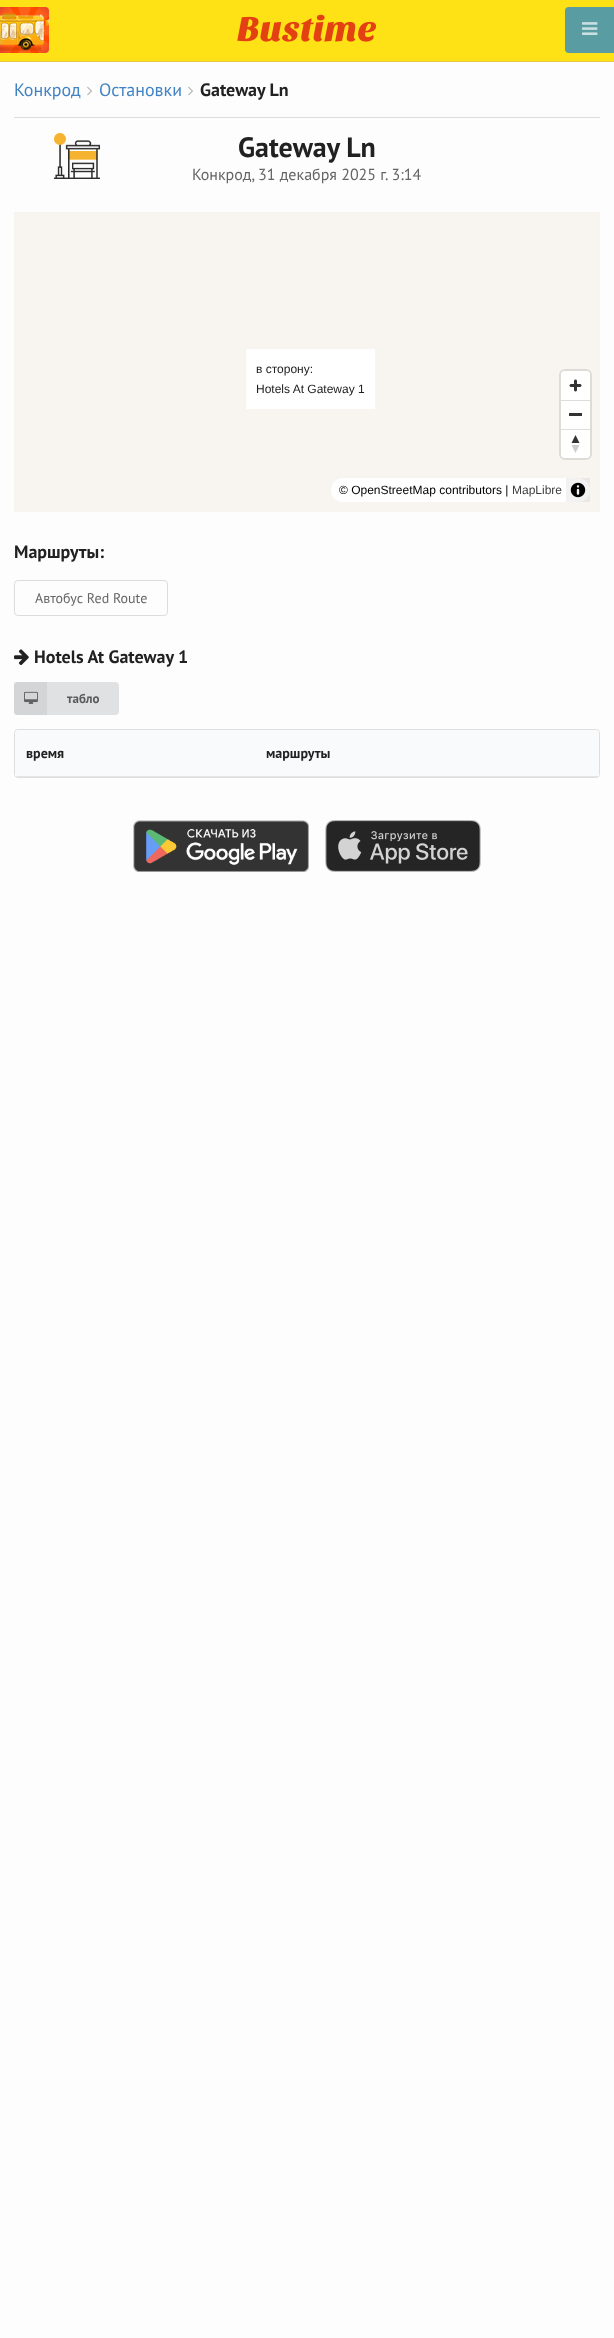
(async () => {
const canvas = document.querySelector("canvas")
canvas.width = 614
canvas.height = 2338
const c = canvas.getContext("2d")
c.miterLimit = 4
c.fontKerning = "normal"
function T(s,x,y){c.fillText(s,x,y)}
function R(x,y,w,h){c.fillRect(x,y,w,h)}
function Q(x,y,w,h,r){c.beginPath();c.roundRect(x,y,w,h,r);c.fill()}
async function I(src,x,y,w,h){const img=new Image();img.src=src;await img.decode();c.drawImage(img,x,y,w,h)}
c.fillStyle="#fdfdfd"
R(0,0,614,2338)
c.fillStyle="#ffe216"
R(0,0,614,61)
await I("1.png",0,7,49,46)
c.fillStyle="#599ca2"
c.beginPath()
c.roundRect(565,7,49,46,[4,0,0,4])
c.fill()
await I("2.png",582,22,16,13)
c.fillStyle="#ecc745"
R(0,61,614,1)
await I("3.png",237,14,140,28)
c.font="18px PT Sans"
c.fillStyle="#4183c4"
T("Конкрод",14,96)
await I("4.png",87,86,5,10)
T("Остановки",99,96)
await I("4.png",188,86,5,10)
c.font="bold 18px PT Sans"
c.fillStyle="#212121"
T("Gateway Ln",200,96)
c.fillStyle="#dcdcdd"
R(14,117,586,1)
await I("5.png",54,133,46,46)
c.font="bold 28px PT Sans"
c.fillStyle="#212121"
T("Gateway Ln",238,157)
c.font="16px PT Sans"
c.fillStyle="#656565"
T("Конкрод, 31 декабря 2025 г. 3:14",192,180)
c.fillStyle="#f8f4f0"
R(14,212,586,300)
c.fillStyle="#fff"
R(246,349,129,60)
c.font="12px Liberation Sans"
c.fillStyle="#212121"
T("в сторону:",256,373)
T("Hotels At Gateway 1",256,393)
c.beginPath()
c.roundRect(560,370,31,89,5)
c.strokeStyle="#dfdcd8"
c.lineWidth=2
c.stroke()
c.fillStyle="#fff"
Q(561,371,29,87,4)
await I("6.png",569,379,13,13)
c.fillStyle="#ddd"
R(561,400,29,1)
c.fillStyle="#333"
R(569,413,13,3)
c.fillStyle="#ddd"
R(561,429,29,1)
await I("7.png",571,435,9,18)
c.fillStyle="#fff"
Q(331,478,259,24,12)
c.fillStyle="#000"
T("© OpenStreetMap contributors |",339,494)
c.fillStyle="#404040"
T("MapLibre",512,494)
c.fillStyle="#0000000d"
R(566,478,24,24)
await I("8.png",570,482,16,16)
c.font="bold 18px PT Sans"
c.fillStyle="#212121"
T("Маршруты:",14,558)
c.beginPath()
c.roundRect(14.5,580.5,153,35,3.5)
c.strokeStyle="#dcdcdd"
c.lineWidth=1
c.stroke()
c.font="14px PT Sans"
c.fillStyle="#656565"
T("Автобус Red Route",35,603)
await I("9.png",14,649,15,16)
c.font="bold 18px PT Sans"
c.fillStyle="#212121"
T("Hotels At Gateway 1",34,663)
c.fillStyle="#e0e1e2"
Q(14,682,105,33,4)
c.fillStyle="#0000000d"
R(14,682,33,33)
await I("10.png",24,691,14,13)
c.font="bold 13px PT Sans"
c.fillStyle="#5a5a5a"
T("табло",67,703)
c.beginPath()
c.roundRect(14.5,729.5,585,48,3.5)
c.strokeStyle="#dedede"
c.stroke()
c.fillStyle="#f9fafb"
c.beginPath()
c.roundRect(15,730,240,47,[4,0,0,0])
c.fill()
c.fillStyle="#e3e5e6"
R(15,776,240,1)
c.font="bold 14px PT Sans"
c.fillStyle="#212121"
T("время",26,758)
c.fillStyle="#f9fafb"
c.beginPath()
c.roundRect(255,730,344,47,[0,4,0,0])
c.fill()
c.fillStyle="#e3e5e6"
R(255,776,344,1)
c.fillStyle="#212121"
T("маршруты",266,758)
await I("11.png",133,820,176,52)
await I("12.png",325,820,156,52)
})()
